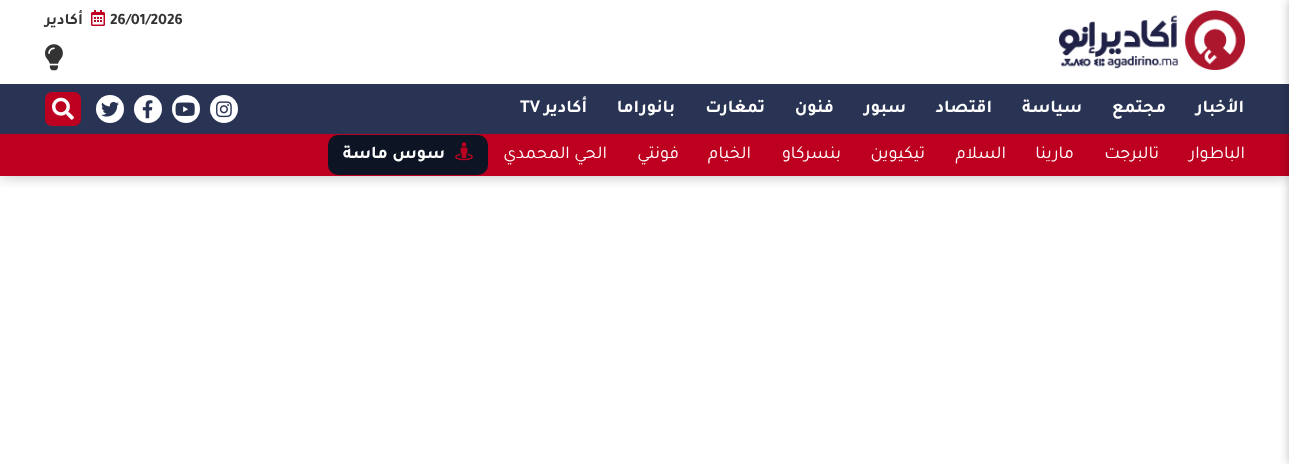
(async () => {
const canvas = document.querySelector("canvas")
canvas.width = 1289
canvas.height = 464
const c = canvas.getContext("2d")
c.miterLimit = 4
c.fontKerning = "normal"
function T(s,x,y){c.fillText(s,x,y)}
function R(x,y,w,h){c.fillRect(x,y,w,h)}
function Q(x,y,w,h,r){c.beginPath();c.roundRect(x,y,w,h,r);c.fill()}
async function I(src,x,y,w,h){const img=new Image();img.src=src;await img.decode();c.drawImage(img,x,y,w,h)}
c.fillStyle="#fff"
R(0,0,1289,464)
c.save()
c.beginPath()
c.rect(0,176,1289,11)
c.clip()
c.fillStyle="#00000040"
c.filter="blur(7.5px)"
c.beginPath()
c.rect(0,0,1289,176)
c.fill()
c.filter="none"
c.restore()
c.fillStyle="#293354"
R(0,84,1289,50)
c.fillStyle="#bd0020"
R(0,134,1289,42)
c.fillStyle="#00000040"
c.filter="blur(5px)"
c.beginPath()
c.rect(1289,0,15,464)
c.fill()
c.filter="none"
await I("1.png",1059,10,186,60)
c.font="bold 16px Tajawal"
c.fillStyle="#333"
T("26/01/2026",110,24)
await I("2.png",91,10,14,16)
c.direction="rtl"
T("أكادير",83,24)
await I("3.png",45,44,18,27)
c.font="bold 18px Tajawal"
c.fillStyle="#fff"
T("الأخبار",1244,112)
T("مجتمع",1166,112)
T("سياسة",1082,112)
T("اقتصاد",992,112)
T("سبور",906,112)
T("فنون",834,112)
T("تمغارت",765,112)
T("بانوراما",675,112)
T("أكادير",587,112)
c.direction="ltr"
T("TV",520,112)
c.beginPath()
c.arc(224,109,14,0,7)
c.fill()
await I("4.png",216,101,16,17)
c.beginPath()
c.arc(186,109,14,0,7)
c.fill()
await I("5.png",175,102,20,14)
c.beginPath()
c.arc(148,109,14,0,7)
c.fill()
await I("6.png",142,100,11,19)
c.beginPath()
c.arc(110,109,14,0,7)
c.fill()
await I("7.png",101,101,18,16)
c.fillStyle="#bd0020"
Q(45,92,36,34,7)
await I("8.png",52,97,22,23)
c.direction="rtl"
c.font="18px Tajawal"
c.fillStyle="#fff"
T("الباطوار",1245,158)
T("تالبرجت",1159,158)
T("مارينا",1074,158)
T("السلام",1006,158)
T("تيكيوين",925,158)
T("بنسركاو",841,158)
T("الخيام",751,158)
T("فونتي",679,158)
T("الحي المحمدي",607,158)
c.fillStyle="#0d1524"
Q(328,135,160,40,10)
await I("9.png",455,142,18,19)
c.font="bold 18px Tajawal"
c.fillStyle="#fff"
T("سوس ماسة",445,158)
})()
